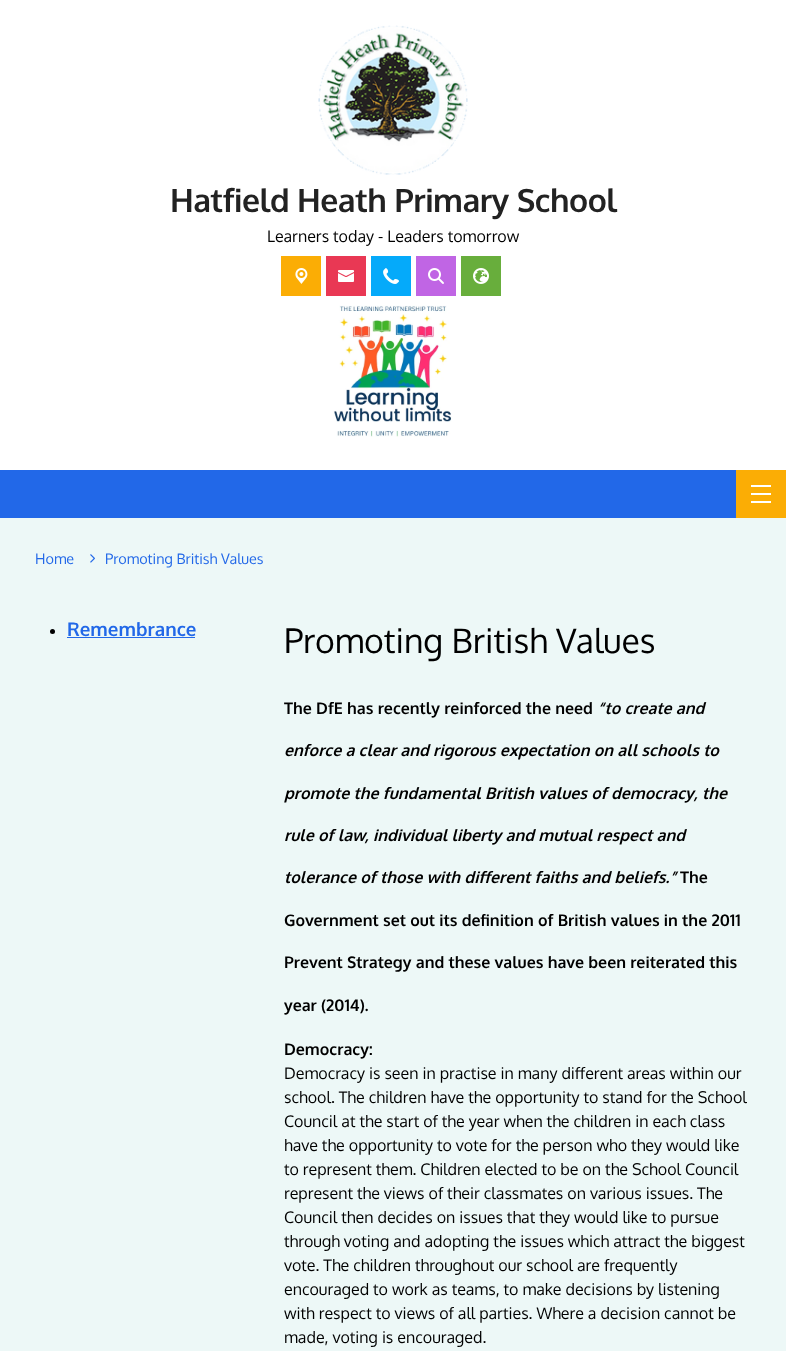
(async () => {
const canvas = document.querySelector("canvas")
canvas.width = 786
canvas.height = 1351
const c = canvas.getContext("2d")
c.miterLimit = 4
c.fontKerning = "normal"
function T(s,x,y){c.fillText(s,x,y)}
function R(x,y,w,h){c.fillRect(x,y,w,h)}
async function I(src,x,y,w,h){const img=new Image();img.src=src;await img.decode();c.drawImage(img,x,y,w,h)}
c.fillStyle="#edf8f7"
R(0,0,786,1351)
c.fillStyle="#fff"
R(0,0,786,470)
await I("1.png",318,25,150,150)
c.letterSpacing="-0.5px"
c.font="bold 32px Oxygen"
c.fillStyle="#222"
T("Hatfield Heath Primary School",170,212)
c.letterSpacing="0px"
c.font="16px Oxygen"
c.fillStyle="#000"
T("Learners today - Leaders tomorrow",267,242)
c.fillStyle="#fbad05"
R(281,256,40,40)
await I("2.png",295,268,13,16)
c.fillStyle="#e93854"
R(326,256,40,40)
await I("3.png",338,270,16,12)
c.fillStyle="#05aafa"
R(371,256,40,40)
await I("4.png",383,268,16,16)
c.fillStyle="#c065e4"
R(416,256,40,40)
await I("5.png",428,268,16,16)
c.fillStyle="#68ae3c"
R(461,256,40,40)
await I("6.png",473,268,16,16)
await I("7.png",333,305,119,132)
c.fillStyle="#2268e8"
R(0,470,736,48)
c.fillStyle="#fbad05"
R(736,470,50,48)
c.fillStyle="#fff"
R(751,485,20,2)
R(751,493,20,2)
R(751,501,20,2)
c.font="14.4px Oxygen"
c.fillStyle="#2268e8"
T("Home",35,564)
await I("8.png",90,554,5,9)
T("Promoting British Values",105,564)
c.fillStyle="#000"
c.beginPath()
c.arc(52.5,631.5,2.5,0,7)
c.fill()
c.font="bold 18.75px Oxygen"
c.fillStyle="#2268e8"
T("Remembrance",67,636)
R(67,637,128,1)
c.font="33.75px Oxygen"
c.fillStyle="#000"
T("Promoting British Values",284,653)
c.font="bold 16px Oxygen"
T("The DfE has recently reinforced the need",284,714)
c.font="italic bold 16px Oxygen"
T("“to create and",597,714)
T("enforce a clear and rigorous expectation on all schools to",284,756)
T("promote the fundamental British values of democracy, the",284,799)
T("rule of law, individual liberty and mutual respect and",284,841)
T("tolerance of those with different faiths and beliefs.”",284,883)
c.font="bold 16px Oxygen"
T("The",680,883)
T("Government set out its definition of British values in the 2011",284,926)
T("Prevent Strategy and these values have been reiterated this",284,968)
T("year (2014).",284,1011)
T("Democracy:",284,1055)
c.font="16px Oxygen"
T("Democracy is seen in practise in many different areas within our",284,1079)
T("school. The children have the opportunity to stand for the School",284,1103)
T("Council at the start of the year when the children in each class",284,1127)
T("have the opportunity to vote for the person who they would like",284,1151)
T("to represent them. Children elected to be on the School Council",284,1175)
T("represent the views of their classmates on various issues. The",284,1199)
T("Council then decides on issues that they would like to pursue",284,1223)
T("through voting and adopting the issues which attract the biggest",284,1247)
T("vote. The children throughout our school are frequently",284,1271)
T("encouraged to work as teams, to make decisions by listening",284,1295)
T("with respect to views of all parties. Where a decision cannot be",284,1319)
T("made, voting is encouraged.",284,1343)
})()
